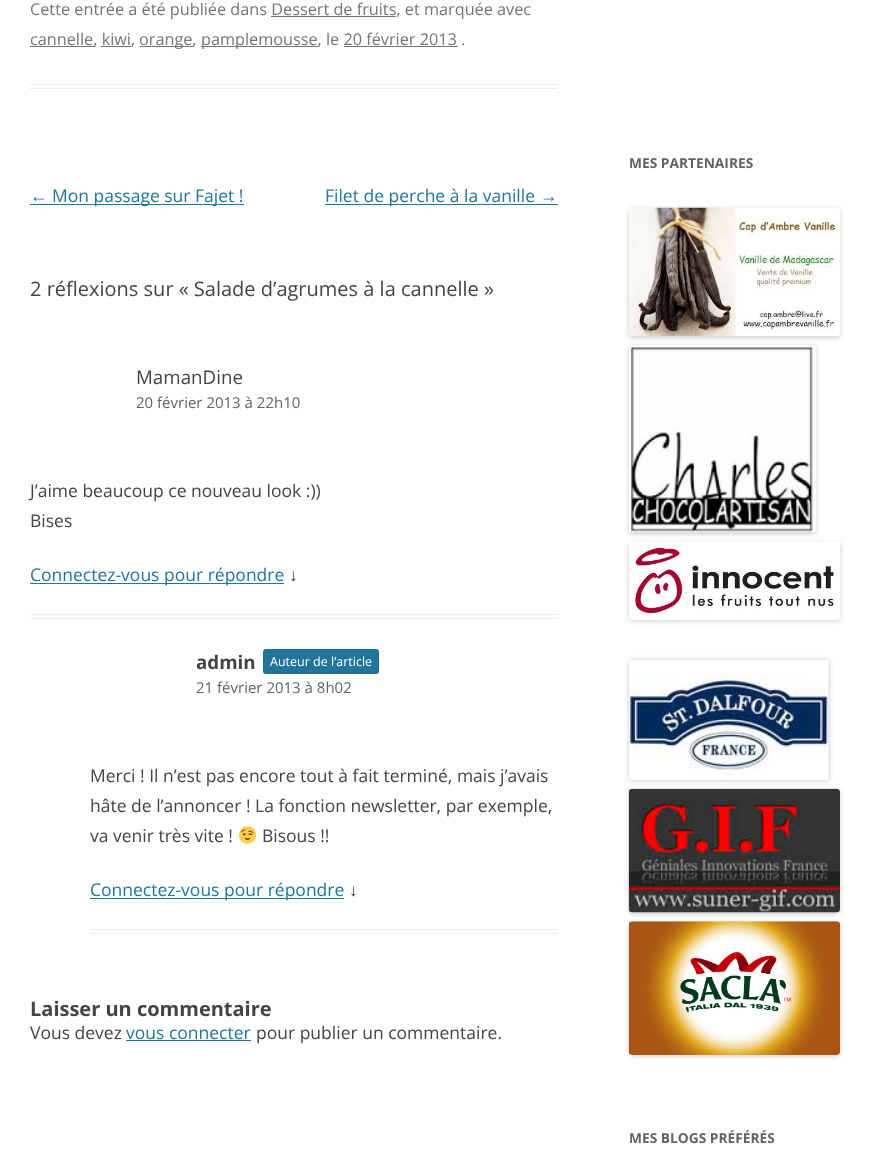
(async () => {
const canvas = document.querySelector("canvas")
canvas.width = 869
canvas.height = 1161
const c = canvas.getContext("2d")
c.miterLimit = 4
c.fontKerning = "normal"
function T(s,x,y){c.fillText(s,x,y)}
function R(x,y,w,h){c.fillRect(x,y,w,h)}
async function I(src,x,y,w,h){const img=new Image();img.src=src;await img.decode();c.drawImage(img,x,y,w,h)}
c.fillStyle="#fff"
R(0,0,869,1161)
c.fillStyle="#ededed"
R(30,84,528,1)
R(30,88,528,1)
c.font="16.25px Open Sans"
c.fillStyle="#757575"
T("Cette entrée a été publiée dans Dessert de fruits, et marquée avec",30,15)
R(271,16,125,1)
R(30,46,64,1)
T("cannelle, kiwi,",30,45)
R(140,46,53,1)
T("orange,",139,45)
R(201,46,117,1)
T("pamplemousse, le 20 février 2013 .",201,45)
R(101,46,30,1)
R(344,46,114,1)
c.font="17.5px Liberation Sans"
c.fillStyle="#21759b"
T("←",30,202)
R(30,204,214,1)
c.font="17.5px Open Sans"
T("Mon passage sur Fajet !",52,202)
R(325,204,233,1)
T("Filet de perche à la vanille",325,202)
c.font="17.5px Liberation Sans"
T("→",540,202)
c.font="20px Open Sans"
c.fillStyle="#444"
T("2 réflexions sur « Salade d’agrumes à la cannelle »",30,296)
c.fillStyle="#ededed"
R(30,614,528,1)
R(30,618,528,1)
c.font="18.75px Open Sans"
c.fillStyle="#444"
T("MamanDine",136,384)
c.font="15px Open Sans"
c.fillStyle="#636363"
T("20 février 2013 à 22h10",136,408)
c.font="17.5px Open Sans"
c.fillStyle="#444"
T("J’aime beaucoup ce nouveau look :))",30,497)
T("Bises",30,527)
c.fillStyle="#21759b"
R(30,583,254,1)
T("Connectez-vous pour répondre",30,581)
c.font="17.5px Liberation Sans"
c.fillStyle="#444"
T("↓",289,581)
c.fillStyle="#ededed"
R(90,929,468,1)
R(90,933,468,1)
c.font="bold 18.75px Open Sans"
c.fillStyle="#444"
T("admin",196,669)
c.fillStyle="#21759b"
c.beginPath()
c.roundRect(263.5,649.5,115,24,2)
c.fill()
c.strokeStyle="#1f6f93"
c.stroke()
c.font="12.5px Open Sans"
c.fillStyle="#fff"
T("Auteur de l’article",270,666)
c.font="15px Open Sans"
c.fillStyle="#636363"
T("21 février 2013 à 8h02",196,693)
c.font="17.5px Open Sans"
c.fillStyle="#444"
T("Merci ! Il n’est pas encore tout à fait terminé, mais j’avais",90,782)
T("hâte de l’annoncer ! La fonction newsletter, par exemple,",90,812)
T("va venir très vite !",90,842)
await I("1.png",239,826,17,18)
T("Bisous !!",262,842)
c.fillStyle="#21759b"
R(90,898,254,1)
T("Connectez-vous pour répondre",90,896)
c.font="17.5px Liberation Sans"
c.fillStyle="#444"
T("↓",349,896)
c.font="bold 20px Open Sans"
T("Laisser un commentaire",30,1016)
c.font="17.5px Open Sans"
T("Vous devez",30,1039)
c.fillStyle="#21759b"
T("vous connecter",126,1039)
R(126,1040,125,1)
c.fillStyle="#444"
T("pour publier un commentaire.",256,1039)
c.font="bold 13.75px Open Sans"
c.fillStyle="#636363"
T("MES PARTENAIRES",629,168)
c.fillStyle="#00000033"
c.filter="blur(2.5px)"
c.beginPath()
c.roundRect(629,209,211,129,4)
c.fill()
c.filter="none"
await I("2.png",629,207,211,130)
c.filter="blur(2.5px)"
c.beginPath()
c.roundRect(629,346,187,188,4)
c.fill()
c.filter="none"
await I("3.png",629,345,187,188)
c.filter="blur(2.5px)"
c.beginPath()
c.roundRect(629,543,211,78,4)
c.fill()
c.filter="none"
await I("4.png",629,541,211,79)
c.filter="blur(2.5px)"
c.beginPath()
c.roundRect(629,660,200,121,4)
c.fill()
c.filter="none"
await I("5.png",629,660,200,120)
c.filter="blur(2.5px)"
c.beginPath()
c.roundRect(629,790,211,124,4)
c.fill()
c.filter="none"
await I("6.png",628,788,212,125)
c.filter="blur(2.5px)"
c.beginPath()
c.roundRect(629,923,211,133,4)
c.fill()
c.filter="none"
await I("7.png",628,921,212,134)
c.fillStyle="#636363"
T("MES BLOGS PRÉFÉRÉS",629,1143)
})()
